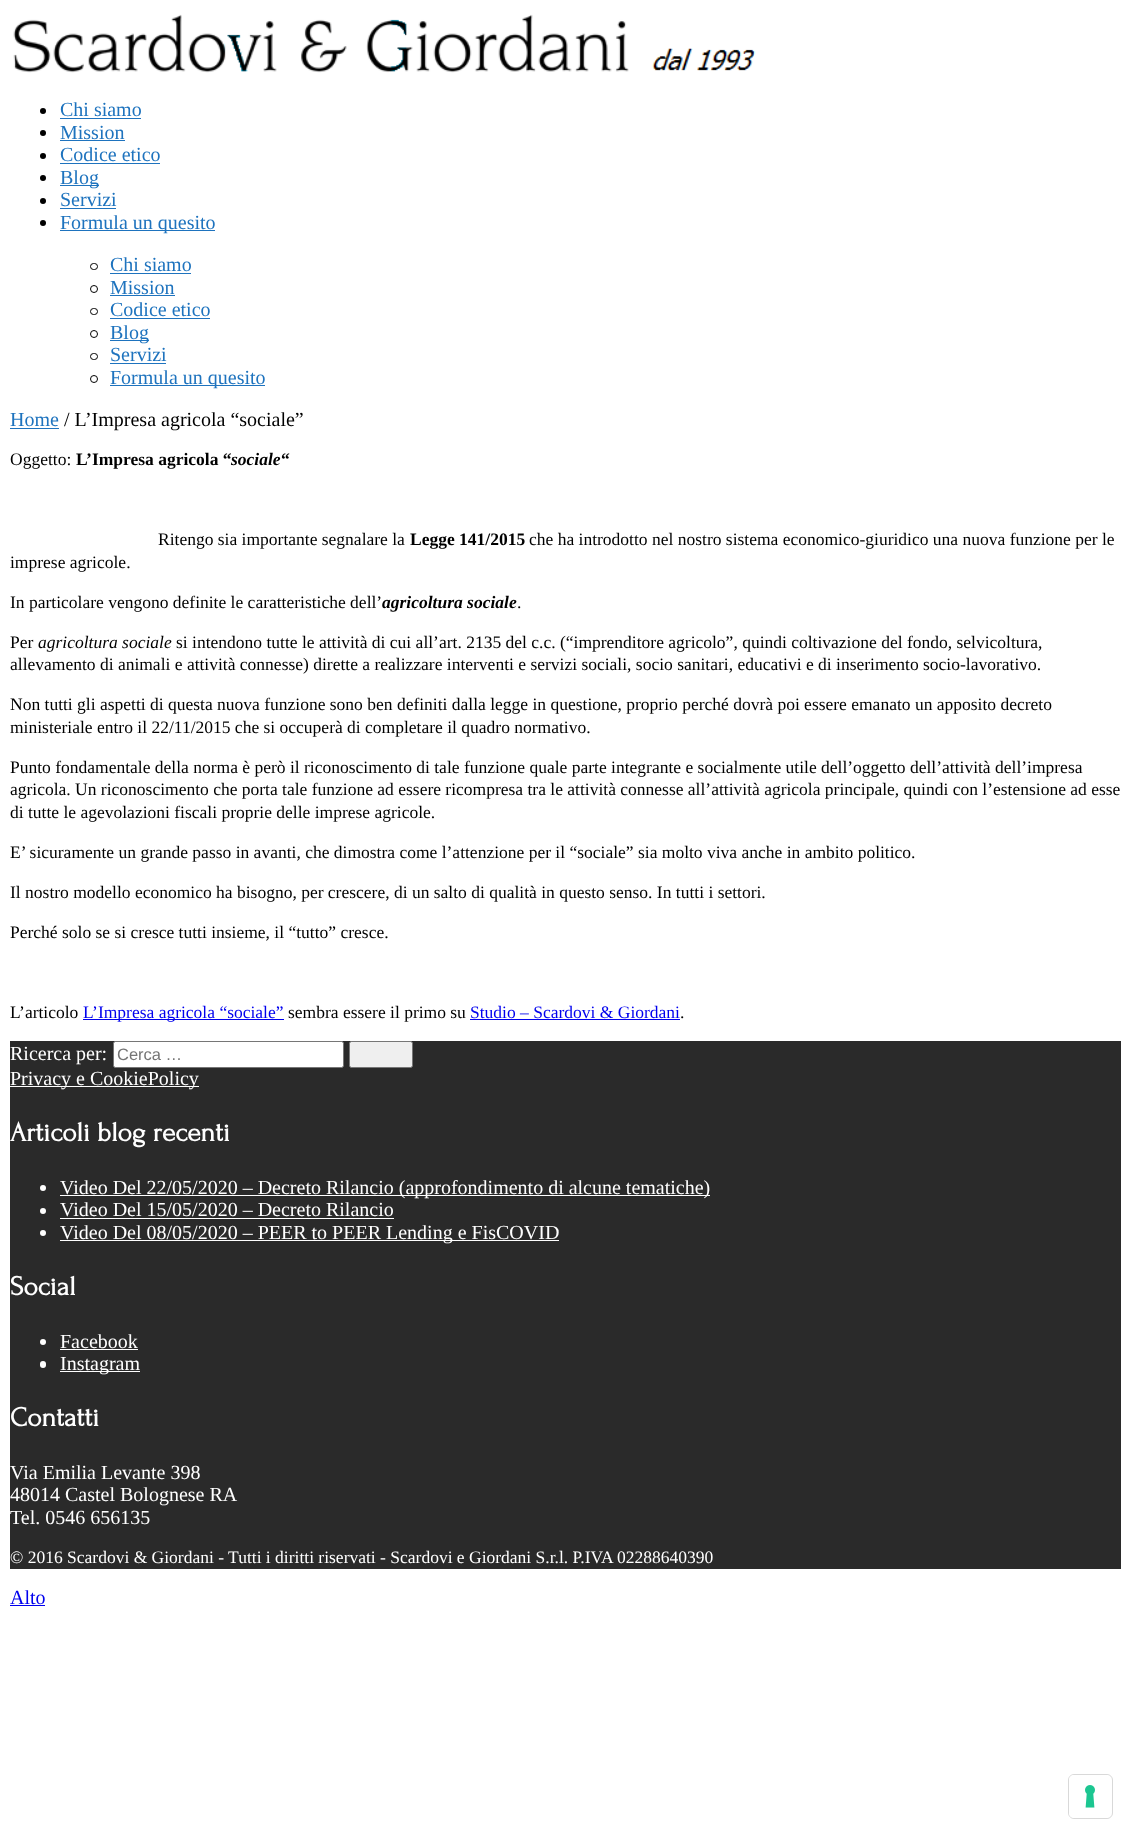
(async () => {
const canvas = document.querySelector("canvas")
canvas.width = 1131
canvas.height = 1837
const c = canvas.getContext("2d")
c.miterLimit = 4
c.fontKerning = "normal"
function T(s,x,y){c.fillText(s,x,y)}
function R(x,y,w,h){c.fillRect(x,y,w,h)}
function Q(x,y,w,h,r){c.beginPath();c.roundRect(x,y,w,h,r);c.fill()}
async function I(src,x,y,w,h){const img=new Image();img.src=src;await img.decode();c.drawImage(img,x,y,w,h)}
c.fillStyle="#fff"
R(0,0,1131,1837)
await I("1.png",13,14,743,59)
c.fillStyle="#000"
c.beginPath()
c.arc(43,111,3,0,7)
c.fill()
c.font="20px Liberation Serif"
c.fillStyle="#1e73be"
T("Chi siamo",60,116)
R(60,118,81,1)
c.fillStyle="#000"
c.beginPath()
c.arc(43,133,3,0,7)
c.fill()
c.fillStyle="#1e73be"
T("Mission",60,139)
R(60,140,65,1)
c.fillStyle="#000"
c.beginPath()
c.arc(43,156,3,0,7)
c.fill()
c.fillStyle="#1e73be"
T("Codice etico",60,161)
R(60,163,100,1)
c.fillStyle="#000"
c.beginPath()
c.arc(43,178,3,0,7)
c.fill()
c.fillStyle="#1e73be"
R(60,185,39,1)
T("Blog",60,184)
c.fillStyle="#000"
c.beginPath()
c.arc(43,201,3,0,7)
c.fill()
c.fillStyle="#1e73be"
T("Servizi",60,206)
R(60,208,56,1)
c.fillStyle="#000"
c.beginPath()
c.arc(43,223,3,0,7)
c.fill()
c.fillStyle="#1e73be"
R(60,230,155,1)
T("Formula un quesito",60,229)
c.beginPath()
c.roundRect(90.5,263.5,7,6,3)
c.strokeStyle="#000"
c.stroke()
T("Chi siamo",110,271)
R(110,273,81,1)
c.beginPath()
c.arc(94,289,3.5,0,7)
c.stroke()
T("Mission",110,294)
R(110,295,65,1)
c.beginPath()
c.roundRect(90.5,308.5,7,6,3)
c.stroke()
T("Codice etico",110,316)
R(110,318,100,1)
c.beginPath()
c.arc(94,334,3.5,0,7)
c.stroke()
R(110,340,39,1)
T("Blog",110,339)
c.beginPath()
c.roundRect(90.5,353.5,7,6,3)
c.stroke()
T("Servizi",110,361)
R(110,363,56,1)
c.beginPath()
c.arc(94,379,3.5,0,7)
c.stroke()
R(110,385,155,1)
T("Formula un quesito",110,384)
T("Home",10,426)
R(10,428,49,1)
c.fillStyle="#000"
T("/ L’Impresa agricola “sociale”",64,426)
c.font="17.5px Liberation Serif"
T("Oggetto:",10,465)
c.font="bold 17.5px Liberation Serif"
T("L’Impresa agricola “",76,465)
c.font="italic bold 17.5px Liberation Serif"
T("sociale",231,465)
c.font="bold 17.5px Liberation Serif"
T("“",281,465)
c.font="17.5px Liberation Serif"
T("Ritengo sia importante segnalare la",158,545)
c.font="bold 17.5px Liberation Serif"
T("Legge 141/2015",410,545)
c.font="17.5px Liberation Serif"
T("che ha introdotto nel nostro sistema economico-giuridico una nuova funzione per le",529,545)
T("imprese agricole.",10,568)
T("In particolare vengono definite le caratteristiche dell’",10,608)
c.font="italic bold 17.5px Liberation Serif"
T("agricoltura sociale",382,608)
c.font="17.5px Liberation Serif"
T(".",517,608)
T("Per",10,648)
c.font="italic 17.5px Liberation Serif"
T("agricoltura sociale",38,648)
c.font="17.5px Liberation Serif"
T("si intendono tutte le attività di cui all’art. 2135 del c.c. (“imprenditore agricolo”, quindi coltivazione del fondo, selvicoltura,",176,648)
T("allevamento di animali e attività connesse) dirette a realizzare interventi e servizi sociali, socio sanitari, educativi e di inserimento socio-lavorativo.",10,670)
T("Non tutti gli aspetti di questa nuova funzione sono ben definiti dalla legge in questione, proprio perché dovrà poi essere emanato un apposito decreto",10,710)
T("ministeriale entro il 22/11/2015 che si occuperà di completare il quadro normativo.",10,733)
T("Punto fondamentale della norma è però il riconoscimento di tale funzione quale parte integrante e socialmente utile dell’oggetto dell’attività dell’impresa",10,773)
T("agricola. Un riconoscimento che porta tale funzione ad essere ricompresa tra le attività connesse all’attività agricola principale, quindi con l’estensione ad esse",10,795)
T("di tutte le agevolazioni fiscali proprie delle imprese agricole.",10,818)
T("E’ sicuramente un grande passo in avanti, che dimostra come l’attenzione per il “sociale” sia molto viva anche in ambito politico.",10,858)
T("Il nostro modello economico ha bisogno, per crescere, di un salto di qualità in questo senso. In tutti i settori.",10,898)
T("Perché solo se si cresce tutti insieme, il “tutto” cresce.",10,938)
T("L’articolo",10,1018)
c.fillStyle="#00e"
R(83,1019,201,1)
T("L’Impresa agricola “sociale”",83,1018)
c.fillStyle="#000"
T("sembra essere il primo su",288,1018)
c.fillStyle="#00e"
T("Studio – Scardovi & Giordani",470,1018)
R(470,1019,210,1)
c.fillStyle="#000"
T(".",680,1018)
c.fillStyle="#2a2a2a"
R(10,1041,1111,528)
c.font="20px Liberation Serif"
c.fillStyle="#fff"
T("Ricerca per:",10,1060)
c.beginPath()
c.roundRect(113.5,1041.5,230,26,2)
c.fill()
c.strokeStyle="#767676"
c.stroke()
c.font="16.5px Liberation Sans"
c.fillStyle="#757575"
T("Cerca …",117,1060)
c.fillStyle="#efefef"
c.beginPath()
c.roundRect(349.5,1041.5,63,26,2)
c.fill()
c.stroke()
c.fillStyle="#fff"
R(10,1086,189,1)
c.font="20px Liberation Serif"
T("Privacy e CookiePolicy",10,1085)
c.font="bold 27.5px Forum"
T("Articoli blog recenti",10,1141)
c.beginPath()
c.arc(43,1188,3,0,7)
c.fill()
R(60,1195,650,1)
c.font="20px Liberation Serif"
T("Video Del 22/05/2020 – Decreto Rilancio (approfondimento di alcune tematiche)",60,1194)
c.beginPath()
c.arc(43,1211,3,0,7)
c.fill()
T("Video Del 15/05/2020 – Decreto Rilancio",60,1216)
R(60,1218,334,1)
c.beginPath()
c.arc(43,1233,3,0,7)
c.fill()
R(60,1240,499,1)
T("Video Del 08/05/2020 – PEER to PEER Lending e FisCOVID",60,1239)
c.font="bold 27.5px Forum"
T("Social",10,1295)
c.beginPath()
c.arc(43,1342,3,0,7)
c.fill()
c.font="20px Liberation Serif"
T("Facebook",60,1348)
R(60,1349,78,1)
Q(40,1361,6,7,3)
R(60,1371,80,1)
T("Instagram",60,1370)
c.font="bold 27.5px Forum"
T("Contatti",10,1426)
c.font="20px Liberation Serif"
T("Via Emilia Levante 398",10,1479)
T("48014 Castel Bolognese RA",10,1501)
T("Tel. 0546 656135",10,1524)
c.font="17.5px Liberation Serif"
T("© 2016 Scardovi & Giordani - Tutti i diritti riservati - Scardovi e Giordani S.r.l. P.IVA 02288640390",10,1563)
c.font="20px Liberation Serif"
c.fillStyle="#00e"
T("Alto",10,1604)
R(10,1605,35,1)
c.beginPath()
c.roundRect(1068.5,1774.5,44,44,5.5)
c.strokeStyle="#d9d9d9"
c.stroke()
c.fillStyle="#fff"
Q(1069,1775,42,43,5)
await I("2.png",1085,1785,10,23)
})()
